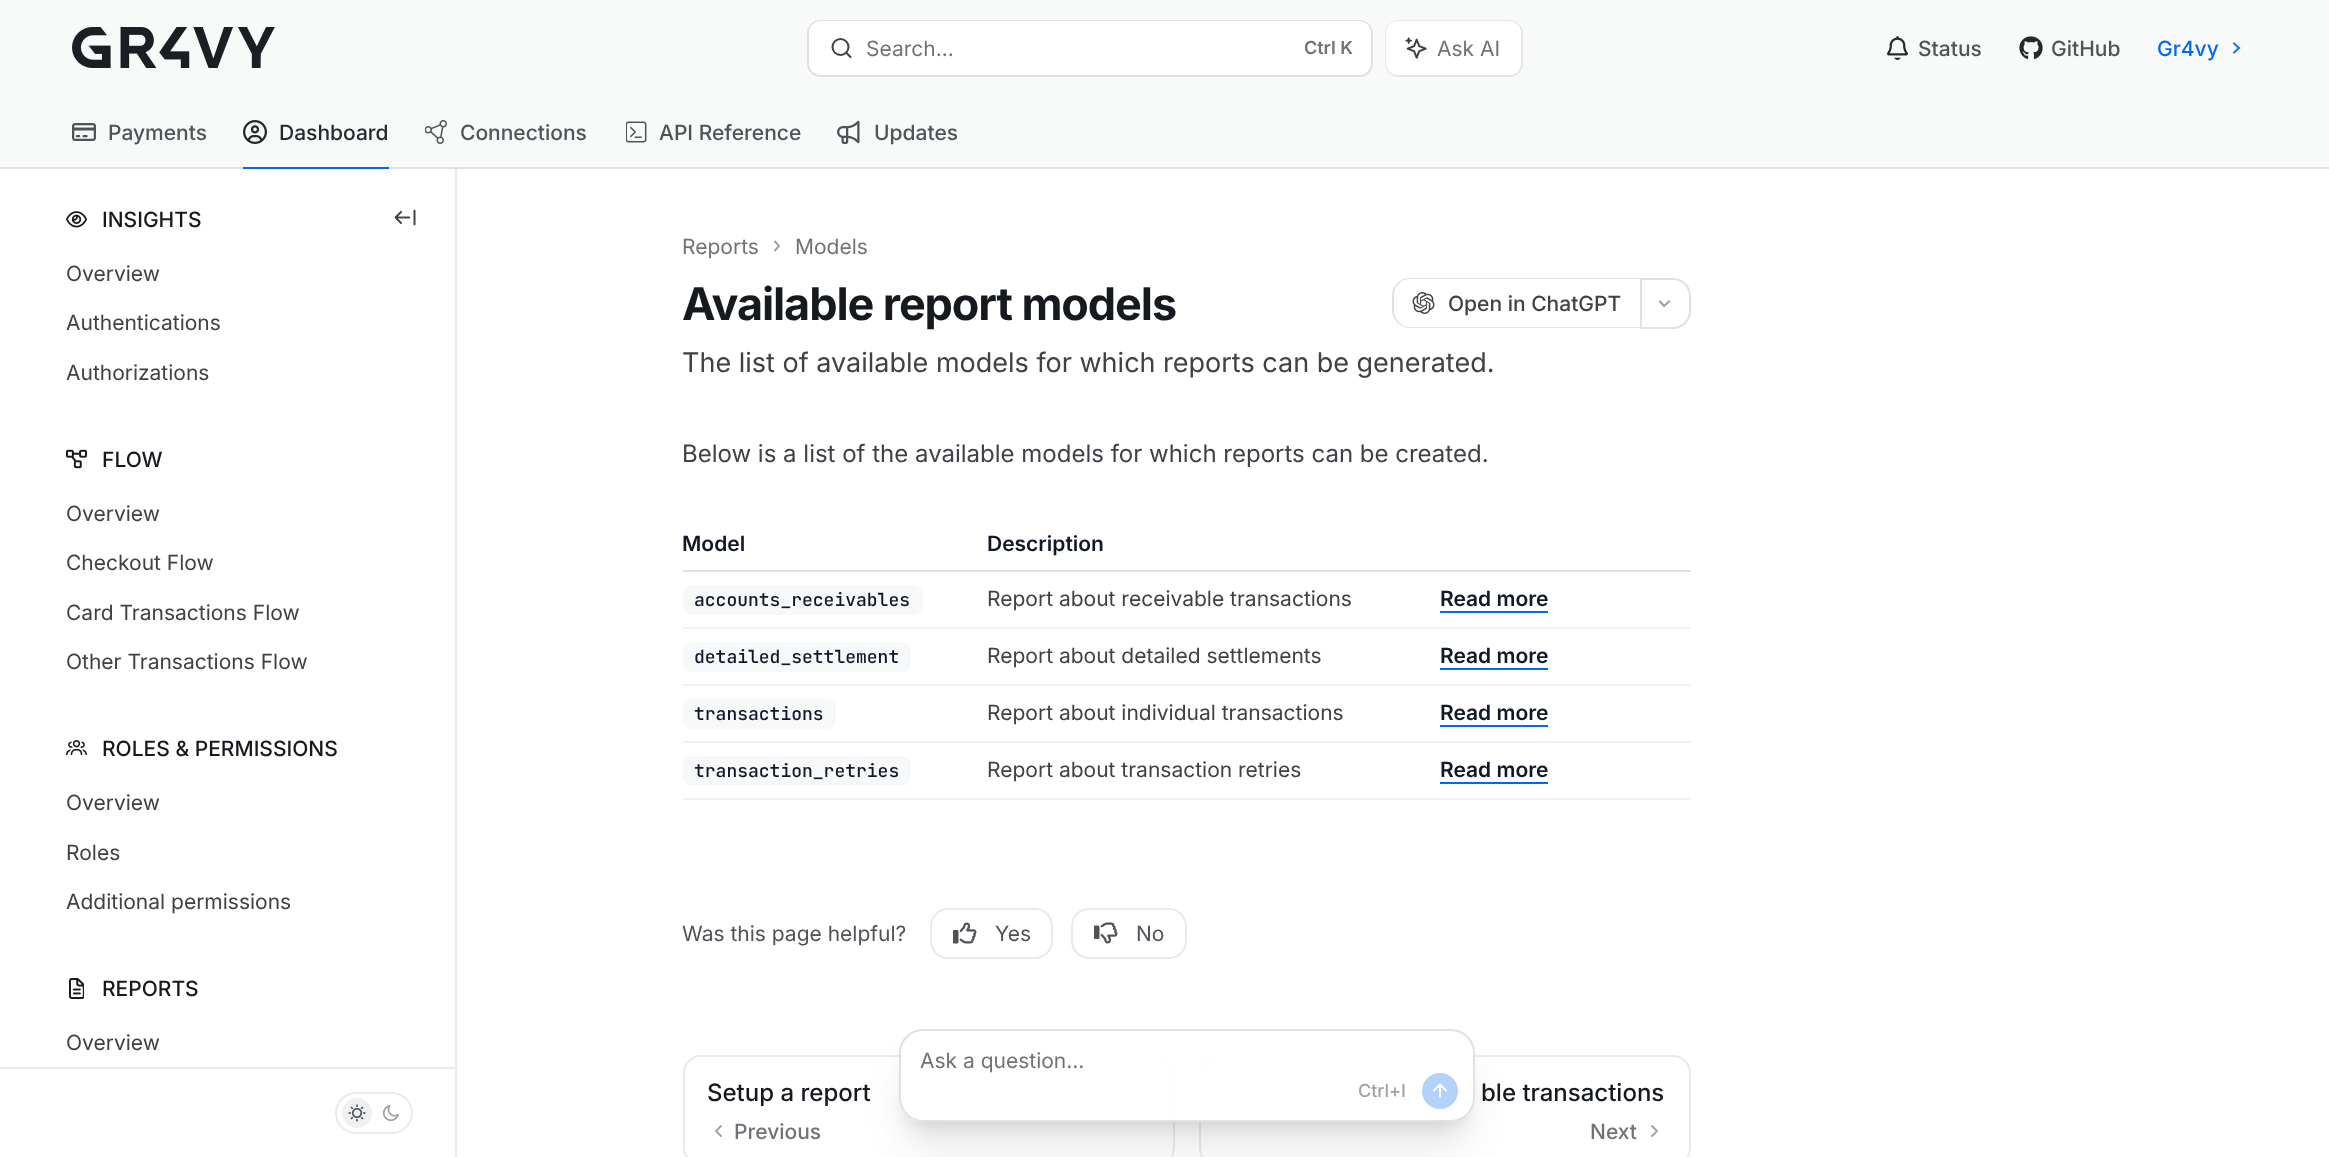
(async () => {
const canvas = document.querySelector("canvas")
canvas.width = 2329
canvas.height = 1157
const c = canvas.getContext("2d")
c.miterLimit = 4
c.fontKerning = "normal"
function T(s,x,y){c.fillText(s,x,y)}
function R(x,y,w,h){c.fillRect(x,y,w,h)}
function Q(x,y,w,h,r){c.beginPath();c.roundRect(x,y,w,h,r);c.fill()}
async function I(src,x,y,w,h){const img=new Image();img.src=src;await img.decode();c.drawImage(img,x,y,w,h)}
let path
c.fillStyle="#fff"
R(0,0,2329,1157)
c.fillStyle="#f8f9f9"
R(0,0,2329,167)
c.fillStyle="#e8eaed"
R(455,168,2,989)
c.fillStyle="#dee1e5"
R(0,167,2329,2)
await I("1.png",72,27,203,41)
c.beginPath()
c.roundRect(808,21,564,55,13)
c.strokeStyle="#dddfe0"
c.lineWidth=2
c.stroke()
c.fillStyle="#fff"
Q(809,21,562,54,12)
c.beginPath()
c.arc(840.5,47,8,0,7)
c.strokeStyle="#3e4145"
c.stroke()
path = new Path2D("M850.5 57l-4.5-4.5")
c.lineCap="round"
c.lineJoin="round"
c.stroke(path)
c.font="21px Inter"
c.fillStyle="#6f7377"
T("Search...",866,56)
c.font="600 18px Inter"
T("Ctrl K",1304,54)
c.beginPath()
c.roundRect(1386,21,136,55,13)
c.strokeStyle="#e6e7e8"
c.lineJoin="miter"
c.stroke()
c.fillStyle="#fff"
Q(1386,21,135,54,12)
await I("2.png",1405,37,22,22)
c.font="21px Inter"
c.fillStyle="#6f7377"
T("Ask AI",1437,56)
await I("3.png",1887,36,21,24)
c.font="500 21px Inter"
c.fillStyle="#4f5357"
T("Status",1918,56)
await I("4.png",2019,36,24,23)
T("GitHub",2051,56)
c.fillStyle="#0069ed"
T("Gr4vy",2157,56)
path = new Path2D("M2234 43.5l5 4.5l-5 4.5")
c.strokeStyle="#1977ee"
c.lineWidth=2.2
c.stroke(path)
await I("5.png",72,123,24,18)
c.fillStyle="#4f5357"
T("Payments",108,140)
await I("6.png",243,120,24,24)
c.fillStyle="#25282c"
T("Dashboard",279,140)
c.fillStyle="#0069ed"
R(243,167,146,2)
await I("7.png",425,120,22,24)
c.fillStyle="#4f5357"
T("Connections",460,140)
await I("8.png",626,121,21,22)
T("API Reference",659,140)
await I("9.png",837,120,23,24)
T("Updates",874,140)
await I("10.png",66,211,21,17)
c.fillStyle="#161a1e"
T("INSIGHTS",102,227)
c.font="21px Inter"
c.fillStyle="#3e4145"
T("Overview",66,281)
T("Authentications",66,330)
T("Authorizations",66,380)
await I("11.png",66,449,21,20)
c.font="500 21px Inter"
c.fillStyle="#161a1e"
T("FLOW",102,467)
c.font="21px Inter"
c.fillStyle="#3e4145"
T("Overview",66,521)
T("Checkout Flow",66,570)
T("Card Transactions Flow",66,620)
T("Other Transactions Flow",66,669)
await I("12.png",66,740,21,16)
c.font="500 21px Inter"
c.fillStyle="#161a1e"
T("ROLES & PERMISSIONS",102,756)
c.font="21px Inter"
c.fillStyle="#3e4145"
T("Overview",66,810)
T("Roles",66,860)
T("Additional permissions",66,909)
await I("13.png",69,978,15,21)
c.font="500 21px Inter"
c.fillStyle="#161a1e"
T("REPORTS",102,996)
c.font="21px Inter"
c.fillStyle="#3e4145"
T("Overview",66,1050)
await I("14.png",395,209,21,17)
c.fillStyle="#e8eaed"
R(0,1067,455,2)
c.beginPath()
c.roundRect(336,1093,76,40,20)
c.strokeStyle="#e8eaed"
c.lineWidth=2
c.stroke()
c.fillStyle="#eff0f2"
c.beginPath()
c.arc(357,1113,15,0,7)
c.fill()
await I("15.png",348,1104,18,18)
await I("16.png",383,1105,16,17)
c.fillStyle="#6f7377"
T("Reports",682,254)
path = new Path2D("M775 250.5l4-4.5l-4-4.5")
c.strokeStyle="#9ea1a5"
c.lineWidth=1.9
c.lineJoin="round"
c.stroke(path)
T("Models",795,254)
c.letterSpacing="-1.1px"
c.font="bold 45px Inter"
c.fillStyle="#161a1e"
T("Available report models",682,320)
c.fillStyle="#dee1e5"
path = new Path2D("M1410 278h230v50h-230c-10 0-18-8-18-18v-14c0-10 8-18 18-18zm0 1h230v48h-230c-9 0-16-7-16-17v-14c0-10 7-17 16-17z")
c.fill(path,"evenodd")
await I("17.png",1412,292,23,22)
c.letterSpacing="0px"
c.font="500 21px Inter"
c.fillStyle="#3e4145"
T("Open in ChatGPT",1448,311)
c.beginPath()
c.roundRect(1641,279,49,49,[0,17,17,0])
c.strokeStyle="#dee1e5"
c.lineWidth=2
c.lineJoin="miter"
c.stroke()
path = new Path2D("M1669 301.5l-5 4.5l-4-4.5")
c.strokeStyle="#9ea1a5"
c.lineWidth=2.2
c.stroke(path)
c.font="27px Inter"
T("The list of available models for which reports can be generated.",682,372)
c.font="24px Inter"
T("Below is a list of the available models for which reports can be created.",682,462)
c.fillStyle="#dee1e5"
R(683,570,1008,2)
c.font="600 21px Inter"
c.fillStyle="#111827"
T("Model",682,551)
T("Description",987,551)
c.fillStyle="#eef1f5"
R(683,627,1008,2)
c.fillStyle="#f7f8fa"
Q(683,585,240,30,9)
c.font="500 18px JetBrains Mono"
c.fillStyle="#111827"
T("accounts_receivables",694,606)
c.font="21px Inter"
c.fillStyle="#3e4145"
T("Report about receivable transactions",987,606)
c.font="600 21px Inter"
c.fillStyle="#111827"
T("Read more",1440,606)
c.fillStyle="#0069ed"
R(1440,611,108,2)
c.fillStyle="#eef1f5"
R(683,684,1008,2)
c.fillStyle="#f7f8fa"
Q(683,642,228,30,9)
c.font="500 18px JetBrains Mono"
c.fillStyle="#111827"
T("detailed_settlement",694,663)
c.font="21px Inter"
c.fillStyle="#3e4145"
T("Report about detailed settlements",987,663)
c.font="600 21px Inter"
c.fillStyle="#111827"
T("Read more",1440,663)
c.fillStyle="#0069ed"
R(1440,668,108,2)
c.fillStyle="#eef1f5"
R(683,741,1008,2)
c.fillStyle="#f7f8fa"
Q(683,699,153,30,9)
c.font="500 18px JetBrains Mono"
c.fillStyle="#111827"
T("transactions",694,720)
c.font="21px Inter"
c.fillStyle="#3e4145"
T("Report about individual transactions",987,720)
c.font="600 21px Inter"
c.fillStyle="#111827"
T("Read more",1440,720)
c.fillStyle="#0069ed"
R(1440,725,108,2)
c.fillStyle="#eef1f5"
R(683,798,1008,2)
c.fillStyle="#f7f8fa"
Q(683,756,228,30,9)
c.font="500 18px JetBrains Mono"
c.fillStyle="#111827"
T("transaction_retries",694,777)
c.font="21px Inter"
c.fillStyle="#3e4145"
T("Report about transaction retries",987,777)
c.font="600 21px Inter"
c.fillStyle="#111827"
T("Read more",1440,777)
c.fillStyle="#0069ed"
R(1440,782,108,2)
c.font="21px Inter"
c.fillStyle="#4f5357"
T("Was this page helpful?",682,941)
c.beginPath()
c.roundRect(931,909,121,49,17)
c.strokeStyle="#e8eaed"
c.lineWidth=2
c.stroke()
await I("18.png",953,922,24,22)
T("Yes",995,941)
c.beginPath()
c.roundRect(1072,909,114,49,17)
c.stroke()
await I("19.png",1094,922,24,22)
T("No",1136,941)
c.beginPath()
c.roundRect(684,1056,490,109,17)
c.stroke()
c.beginPath()
c.roundRect(1200,1056,490,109,17)
c.stroke()
c.save()
path = new Path2D("M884 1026h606v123h-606zm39 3h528c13.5 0 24 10.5 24 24v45c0 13.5-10.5 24-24 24h-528c-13.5 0-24-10.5-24-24v-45c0-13.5 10.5-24 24-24z")
c.clip(path,"evenodd")
c.fillStyle="#0000001a"
c.filter="blur(7.5px)"
c.beginPath()
c.roundRect(908,1050,558,75,15)
c.fill()
c.filter="none"
c.restore()
c.save()
path = new Path2D("M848 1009h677v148h-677zm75 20h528c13.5 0 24 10.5 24 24v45c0 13.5-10.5 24-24 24h-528c-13.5 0-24-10.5-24-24v-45c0-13.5 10.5-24 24-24z")
c.clip(path,"evenodd")
c.fillStyle="#0000001a"
c.filter="blur(19px)"
c.beginPath()
c.roundRect(906,1067,561,78,17)
c.fill()
c.filter="none"
c.restore()
c.fillStyle="#ffffffe6"
c.beginPath()
c.roundRect(900,1030,574,91,23)
c.fill()
c.strokeStyle="#dee1e5"
c.stroke()
c.fillStyle="#6f7377"
T("Ask a question...",920,1068)
c.font="500 18px Inter"
c.fillStyle="#9ea1a5"
T("Ctrl+I",1358,1097)
c.fillStyle="#0069ed4d"
c.beginPath()
c.arc(1440,1091,18,0,7)
c.fill()
path = new Path2D("M1434 1090.5l6-6l6 6m-6 6v-12")
c.strokeStyle="#fff"
c.lineWidth=1.8
c.lineJoin="round"
c.stroke(path)
c.font="500 24px Inter"
c.fillStyle="#161a1e"
T("Setup a report",707,1101)
path = new Path2D("M721 1136l-5-5l5-5")
c.strokeStyle="#9ea1a5"
c.stroke(path)
c.font="500 21px Inter"
c.fillStyle="#6f7377"
T("Previous",734,1139)
c.font="500 24px Inter"
c.fillStyle="#161a1e"
T("ble transactions",1481,1101)
c.font="500 21px Inter"
c.fillStyle="#6f7377"
T("Next",1590,1139)
path = new Path2D("M1652 1136l5-5l-5-5")
c.stroke(path)
})()
